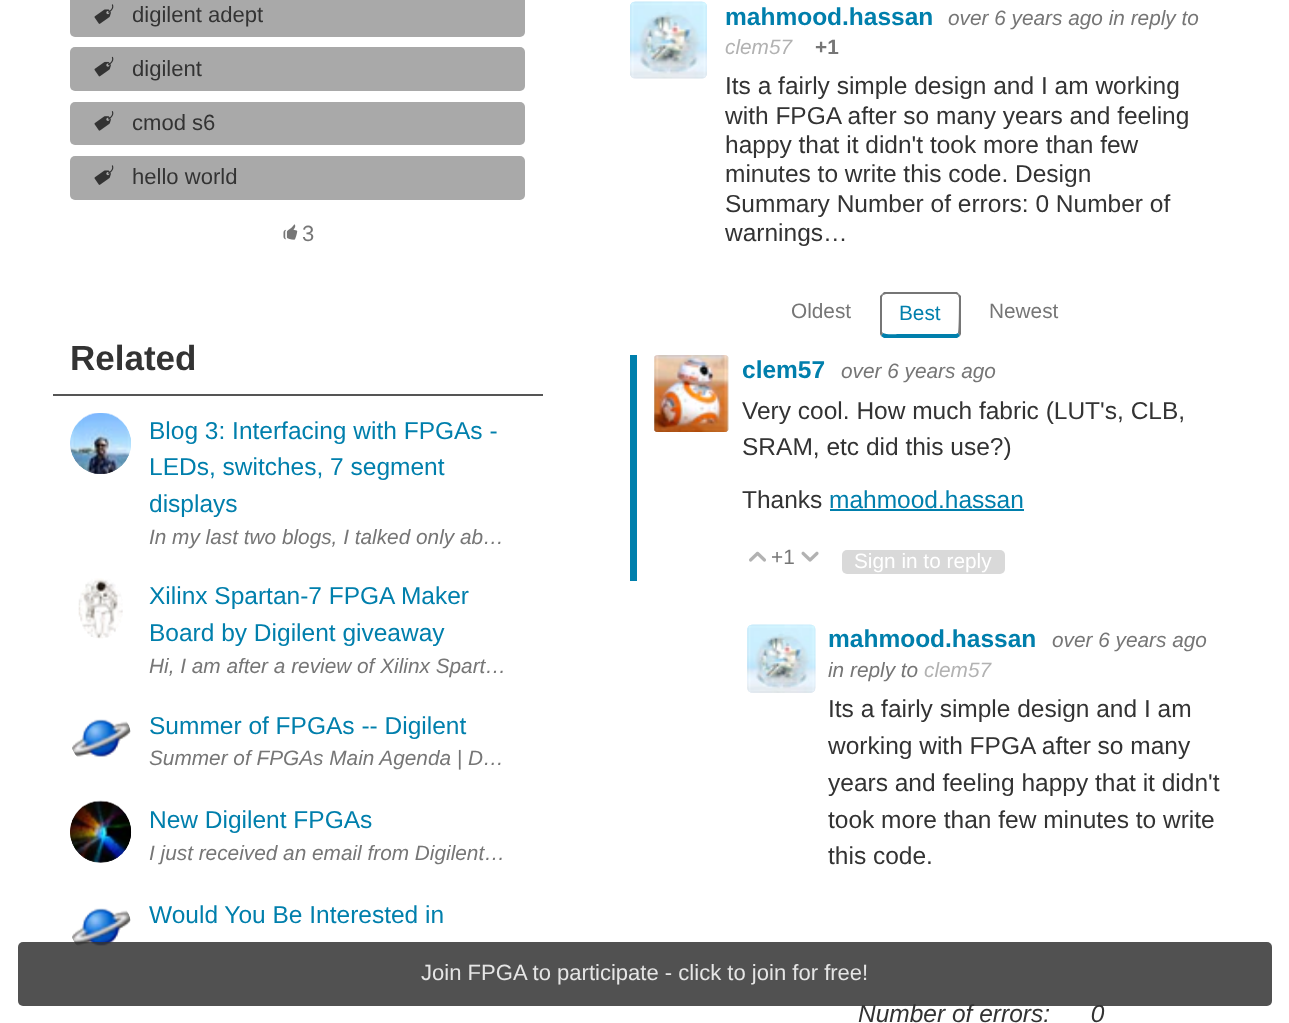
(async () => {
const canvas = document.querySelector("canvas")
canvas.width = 1289
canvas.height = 1023
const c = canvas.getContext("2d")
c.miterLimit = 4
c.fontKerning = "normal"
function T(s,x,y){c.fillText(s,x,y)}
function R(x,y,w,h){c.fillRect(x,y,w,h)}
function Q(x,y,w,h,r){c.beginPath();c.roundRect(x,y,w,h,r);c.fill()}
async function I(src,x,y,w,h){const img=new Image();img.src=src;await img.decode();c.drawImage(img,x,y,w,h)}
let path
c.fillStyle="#fff"
R(0,0,1289,1023)
c.fillStyle="#a9a9a9"
Q(70,-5,455,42,5)
await I("1.png",94,4,20,20)
c.font="22.05px Liberation Sans"
c.fillStyle="#333"
T("digilent adept",132,22)
c.fillStyle="#a9a9a9"
Q(70,47,455,44,5)
await I("2.png",94,56,20,21)
c.fillStyle="#333"
T("digilent",132,76)
c.fillStyle="#a9a9a9"
Q(70,102,455,43,5)
await I("3.png",94,111,20,20)
c.fillStyle="#333"
T("cmod s6",132,130)
c.fillStyle="#a9a9a9"
Q(70,156,455,44,5)
await I("1.png",94,165,20,20)
c.fillStyle="#333"
T("hello world",132,184)
await I("4.png",283,224,15,16)
c.fillStyle="#767676"
T("3",302,241)
c.fillStyle="#555"
R(53,394,490,2)
c.font="bold 35px Liberation Sans"
c.fillStyle="#333"
T("Related",70,370)
c.font="24.5px Liberation Sans"
c.fillStyle="#007fac"
T("Blog 3: Interfacing with FPGAs -",149,439)
T("LEDs, switches, 7 segment",149,475)
T("displays",149,512)
await I("5.png",70,413,61,61)
await I("6.png",70,413,61,61)
c.font="italic 20.8px Liberation Sans"
c.fillStyle="#767676"
T("In my last two blogs, I talked only ab…",149,544)
c.font="24.5px Liberation Sans"
c.fillStyle="#007fac"
T("Xilinx Spartan-7 FPGA Maker",149,604)
T("Board by Digilent giveaway",149,641)
await I("7.png",78,578,45,61)
await I("8.png",79,584,44,54)
c.font="italic 20.8px Liberation Sans"
c.fillStyle="#767676"
T("Hi, I am after a review of Xilinx Spart…",149,673)
c.font="24.5px Liberation Sans"
c.fillStyle="#007fac"
T("Summer of FPGAs -- Digilent",149,734)
await I("9.png",72,719,59,38)
await I("10.png",72,719,59,38)
c.font="italic 20.8px Liberation Sans"
c.fillStyle="#767676"
T("Summer of FPGAs Main Agenda | D…",149,765)
c.font="24.5px Liberation Sans"
c.fillStyle="#007fac"
T("New Digilent FPGAs",149,828)
await I("11.png",70,800,62,63)
await I("12.png",70,800,61,63)
c.font="italic 20.8px Liberation Sans"
c.fillStyle="#767676"
T("I just received an email from Digilent…",149,860)
await I("13.png",72,908,59,38)
await I("14.png",72,908,59,38)
c.font="24.5px Liberation Sans"
c.fillStyle="#007fac"
T("Would You Be Interested in",149,923)
await I("15.png",630,1,77,78)
await I("16.png",630,1,77,78)
c.font="bold 24.5px Liberation Sans"
T("mahmood.hassan",725,25)
c.font="italic 20.8px Liberation Sans"
c.fillStyle="#767676"
T("over 6 years ago in reply to",948,25)
c.fillStyle="#b2b2b2"
T("clem57",725,54)
c.font="bold 20.8px Liberation Sans"
c.fillStyle="#767676"
T("+1",815,54)
c.font="24.5px Liberation Sans"
c.fillStyle="#333"
T("Its a fairly simple design and I am working",725,94)
T("with FPGA after so many years and feeling",725,124)
T("happy that it didn't took more than few",725,153)
T("minutes to write this code. Design",725,182)
T("Summary Number of errors: 0 Number of",725,212)
T("warnings…",725,241)
c.font="20.8px Liberation Sans"
c.fillStyle="#767676"
T("Oldest",791,318)
path = new Path2D("M886 294l-3 1l-1-1l2-2h73l2 2l-1 1l-2-1z")
c.fill(path)
path = new Path2D("M961 334l-1 2l-2-3c1-1 1-32 1-35l-1-3l1-1l2 2z")
c.fill(path)
c.fillStyle="#007fac"
path = new Path2D("M884 338l-3-2l2-3c3 2 14 1 15 1h58l2-1l2 3l-3 2z")
c.fill(path)
c.fillStyle="#767676"
path = new Path2D("M880 296l2-2l1 1l-1 2v35l1 1l-2 3l-1-2z")
c.fill(path)
c.fillStyle="#007fac"
T("Best",899,320)
c.fillStyle="#767676"
T("Newest",989,318)
c.fillStyle="#007fac"
R(630,355,7,226)
await I("17.png",654,355,75,77)
await I("18.png",654,355,75,77)
c.font="bold 24.5px Liberation Sans"
T("clem57",742,378)
c.font="italic 20.8px Liberation Sans"
c.fillStyle="#767676"
T("over 6 years ago",841,378)
c.font="24.5px Liberation Sans"
c.fillStyle="#333"
T("Very cool. How much fabric (LUT's, CLB,",742,419)
T("SRAM, etc did this use?)",742,455)
T("Thanks",742,508)
c.fillStyle="#007fac"
T("mahmood.hassan",829,508)
R(830,509,194,2)
await I("19.png",749,551,17,11)
c.font="20.8px Liberation Sans"
c.fillStyle="#767676"
T("+1",771,564)
await I("20.png",801,551,18,11)
c.fillStyle="#d9d9d9"
Q(842,550,163,24,5)
c.fillStyle="#fff"
T("Sign in to reply",854,568)
await I("21.png",747,624,69,69)
await I("22.png",747,624,69,69)
c.font="bold 24.5px Liberation Sans"
c.fillStyle="#007fac"
T("mahmood.hassan",828,647)
c.font="italic 20.8px Liberation Sans"
c.fillStyle="#767676"
T("over 6 years ago",1052,647)
T("in reply to",828,677)
c.fillStyle="#b2b2b2"
T("clem57",924,677)
c.font="24.5px Liberation Sans"
c.fillStyle="#333"
T("Its a fairly simple design and I am",828,717)
T("working with FPGA after so many",828,754)
T("years and feeling happy that it didn't",828,791)
T("took more than few minutes to write",828,828)
T("this code.",828,864)
c.font="italic 24.5px Liberation Sans"
T("Number of errors:      0",858,1022)
c.fillStyle="#333333d9"
Q(18,942,1254,64,5)
c.font="22.05px Liberation Sans"
c.fillStyle="#e5e5e5"
T("Join FPGA to participate - click to join for free!",421,980)
})()
